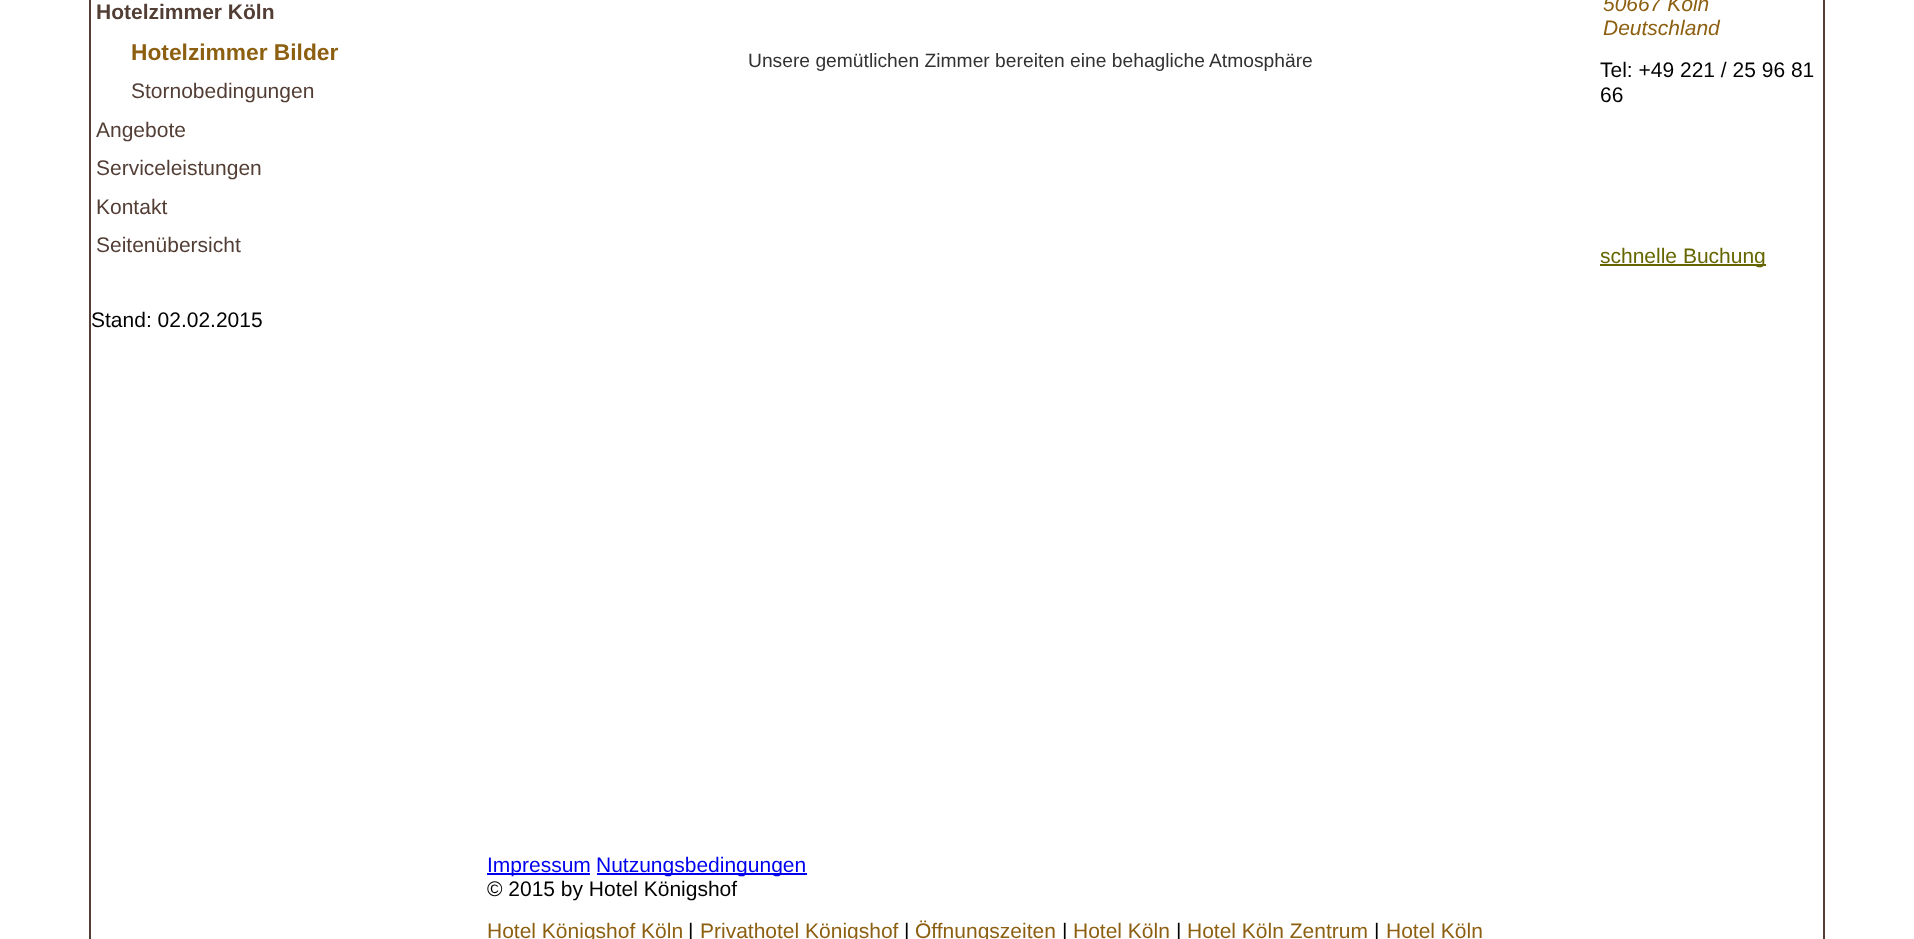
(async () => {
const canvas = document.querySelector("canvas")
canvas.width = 1914
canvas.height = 939
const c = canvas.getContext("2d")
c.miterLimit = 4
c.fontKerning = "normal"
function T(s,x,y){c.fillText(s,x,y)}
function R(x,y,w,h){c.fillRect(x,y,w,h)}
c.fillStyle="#fff"
R(0,0,1914,939)
c.strokeStyle="#533e36"
c.lineWidth=2
c.strokeRect(90,-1,1734,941)
c.font="bold 21px Liberation Sans"
c.fillStyle="#533e36"
T("Hotelzimmer Köln",96,19)
c.font="bold 22.75px Liberation Sans"
c.fillStyle="#8c5f11"
T("Hotelzimmer Bilder",131,60)
c.font="21px Liberation Sans"
c.fillStyle="#533e36"
T("Stornobedingungen",131,98)
T("Angebote",96,137)
T("Serviceleistungen",96,175)
T("Kontakt",96,214)
T("Seitenübersicht",96,252)
c.fillStyle="#000"
T("Stand: 02.02.2015",91,327)
c.font="19.25px Liberation Sans"
c.fillStyle="#323232"
T("Unsere gemütlichen Zimmer bereiten eine behagliche",748,67)
T("Atmosphäre",1209,67)
c.font="italic 21px Liberation Sans"
c.fillStyle="#8c5f11"
T("50667 Köln",1603,11)
T("Deutschland",1603,35)
c.font="21px Liberation Sans"
c.fillStyle="#000"
T("Tel: +49 221 / 25 96 81",1600,77)
T("66",1600,102)
c.fillStyle="#660"
R(1600,264,166,2)
T("schnelle Buchung",1600,263)
c.fillStyle="#00e"
R(487,873,103,2)
T("Impressum",487,872)
R(597,873,210,2)
T("Nutzungsbedingungen",596,872)
c.fillStyle="#000"
T("© 2015 by Hotel Königshof",487,896)
c.fillStyle="#8c5f11"
T("Hotel Königshof Köln",487,938)
c.fillStyle="#000"
T("|",688,938)
c.fillStyle="#8c5f11"
T("Privathotel Königshof",700,938)
c.fillStyle="#000"
T("|",904,938)
c.fillStyle="#8c5f11"
T("Öffnungszeiten",915,938)
c.fillStyle="#000"
T("|",1062,938)
c.fillStyle="#8c5f11"
T("Hotel Köln",1073,938)
c.fillStyle="#000"
T("|",1176,938)
c.fillStyle="#8c5f11"
T("Hotel Köln Zentrum",1187,938)
c.fillStyle="#000"
T("|",1374,938)
c.fillStyle="#8c5f11"
T("Hotel Köln",1386,938)
})()
